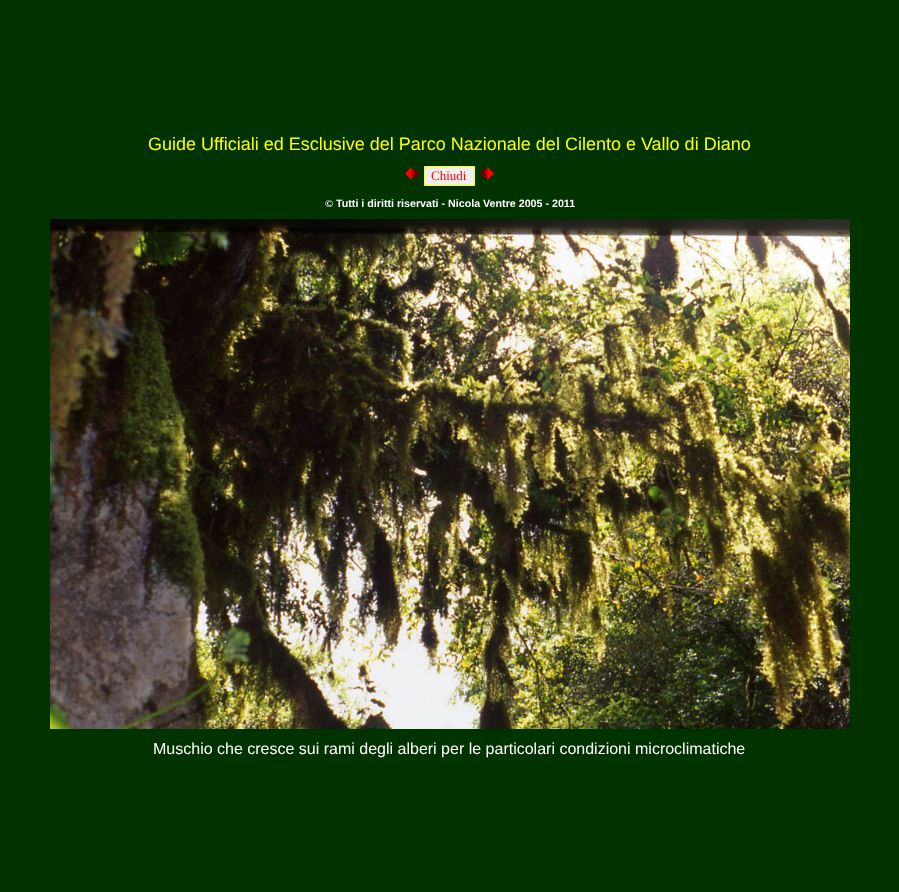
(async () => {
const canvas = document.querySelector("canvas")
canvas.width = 899
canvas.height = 892
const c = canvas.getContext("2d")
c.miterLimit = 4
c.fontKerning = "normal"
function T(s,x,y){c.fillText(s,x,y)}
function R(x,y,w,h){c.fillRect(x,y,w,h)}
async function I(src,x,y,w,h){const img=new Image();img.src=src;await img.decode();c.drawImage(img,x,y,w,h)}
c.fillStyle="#030"
R(0,0,899,892)
c.font="18px Liberation Sans"
c.fillStyle="#ff0"
T("Guide Ufficiali ed Esclusive del Parco Nazionale del Cilento e Vallo di Diano",148,150)
await I("1.png",405,167,13,13)
c.fillStyle="#efefef"
c.beginPath()
c.rect(424.5,166.5,50,19)
c.fill()
c.strokeStyle="#ff0"
c.stroke()
c.font="13px Liberation Serif"
c.fillStyle="#f00"
T("Chiudi",431,180)
await I("2.png",481,167,13,13)
c.font="bold 10.7px Liberation Serif"
c.fillStyle="#fff"
T("©",325,207)
c.font="bold 10.7px Liberation Sans"
T("Tutti i diritti riservati - Nicola Ventre 2005 - 2011",336,207)
await I("3.png",50,219,800,510)
c.font="16px Liberation Sans"
T("Muschio che cresce sui rami degli alberi per le particolari condizioni microclimatiche",153,754)
})()
